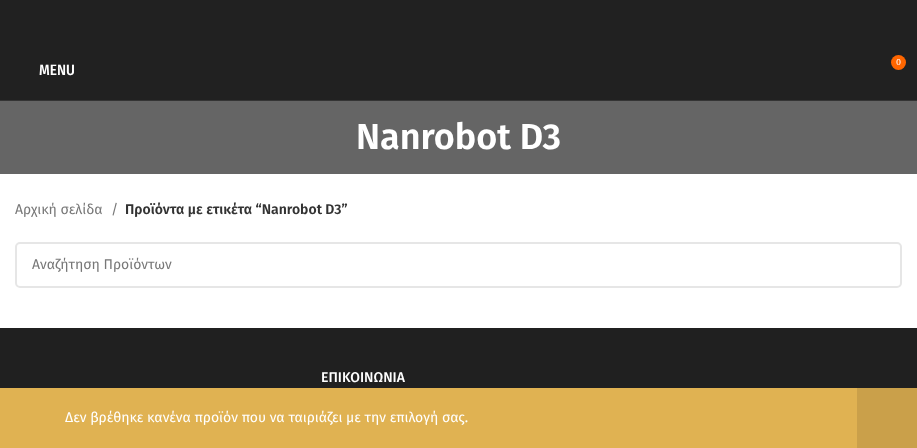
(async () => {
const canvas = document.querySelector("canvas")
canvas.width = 917
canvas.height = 448
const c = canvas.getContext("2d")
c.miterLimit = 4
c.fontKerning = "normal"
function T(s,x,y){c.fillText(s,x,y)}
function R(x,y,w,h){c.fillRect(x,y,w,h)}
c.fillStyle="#fff"
R(0,0,917,448)
c.fillStyle="#212121"
R(0,0,917,100)
c.fillStyle="#343434"
R(0,100,917,1)
c.fillStyle="#f60"
c.beginPath()
c.arc(898.5,62.5,7.5,0,7)
c.fill()
c.font="9px Fira Sans"
c.fillStyle="#fff"
T("0",896,65)
c.font="500 15px Fira Sans Condensed"
T("MENU",39,75)
c.fillStyle="#656565"
R(0,101,917,73)
c.font="600 36px Fira Sans"
c.fillStyle="#fff"
T("Nanrobot D3",356,149)
c.font="14px Fira Sans"
c.fillStyle="#777"
T("Αρχική σελίδα",15,214)
T("/",111,214)
c.font="600 14px Fira Sans"
c.fillStyle="#333"
T("Προϊόντα με ετικέτα “Nanrobot D3”",125,214)
c.beginPath()
c.roundRect(16,243,885,44,4)
c.strokeStyle="#e6e6e6"
c.lineWidth=2
c.stroke()
c.font="14px Fira Sans"
c.fillStyle="#777"
T("Αναζήτηση Προϊόντων",32,269)
c.fillStyle="#e0b252"
R(0,388,857,60)
c.fillStyle="#fff"
T("Δεν βρέθηκε κανένα προϊόν που να ταιριάζει με την επιλογή σας.",65,422)
c.fillStyle="#caa04a"
R(857,388,60,60)
c.fillStyle="#202020"
R(0,328,917,60)
c.font="500 14px Fira Sans"
c.fillStyle="#fff"
T("ΕΠΙΚΟΙΝΩΝΙΑ",321,382)
})()
